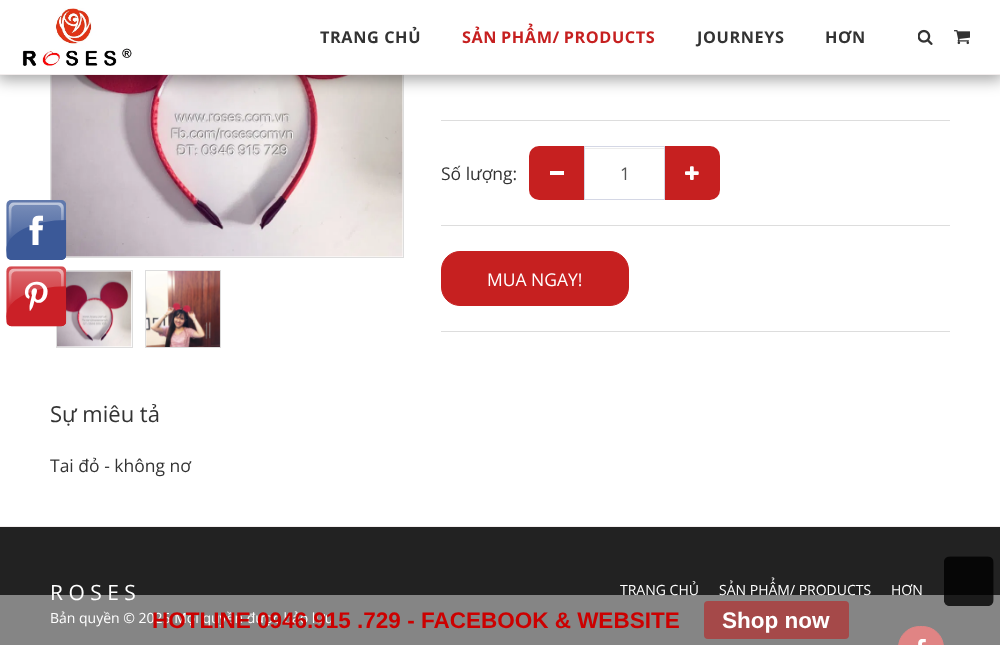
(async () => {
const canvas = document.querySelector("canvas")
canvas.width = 1000
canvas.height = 645
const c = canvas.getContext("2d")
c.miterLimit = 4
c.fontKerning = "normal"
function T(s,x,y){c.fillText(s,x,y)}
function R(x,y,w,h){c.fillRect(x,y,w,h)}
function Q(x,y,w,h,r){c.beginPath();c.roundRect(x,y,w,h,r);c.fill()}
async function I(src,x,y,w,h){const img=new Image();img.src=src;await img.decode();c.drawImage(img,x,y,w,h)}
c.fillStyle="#fff"
R(0,0,1000,645)
c.strokeStyle="#ddd"
c.strokeRect(50.5,-.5,353,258)
await I("5.png",51,75,352,182)
await I("6.png",57,271,75,76)
c.strokeRect(56.5,270.5,76,77)
await I("1.png",6,200,61,127)
c.fillStyle="#00000059"
c.filter="blur(7.5px)"
c.beginPath()
c.rect(-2,0,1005,80)
c.fill()
c.filter="none"
c.fillStyle="#fff"
R(0,0,1000,74)
c.fillStyle="#f3eeee"
R(0,74,1000,1)
await I("2.png",22,8,110,59)
c.letterSpacing="0.6px"
c.font="bold 16.25px Open Sans"
c.fillStyle="#333"
T("TRANG CHỦ",320,43)
c.wordSpacing="-1px"
c.fillStyle="#c62020"
T("SẢN PHẨM/ PRODUCTS",462,43)
c.wordSpacing="0px"
c.fillStyle="#333"
T("JOURNEYS",697,43)
T("HƠN",825,43)
await I("3.png",918,29,15,16)
await I("4.png",954,30,16,15)
await I("7.png",146,271,74,76)
c.strokeRect(145.5,270.5,75,77)
c.fillStyle="#ddd"
R(441,120,509,1)
c.letterSpacing="0px"
c.font="17.5px Open Sans"
c.fillStyle="#333"
T("Số lượng:",441,180)
c.fillStyle="#c62020"
c.beginPath()
c.roundRect(529,146,56,54,[10,0,0,10])
c.fill()
c.fillStyle="#fff"
R(550,171,14,4)
c.fillStyle="#ececec"
R(585,148,79,1)
c.fillStyle="#c62020"
c.beginPath()
c.roundRect(664,146,56,54,[0,10,10,0])
c.fill()
c.strokeStyle="#d4d7e5"
c.strokeRect(584.5,146.5,80,53)
c.fillStyle="#555"
T("1",620,180)
await I("8.png",685,166,14,14)
c.fillStyle="#ddd"
R(441,225,509,1)
c.fillStyle="#c62020"
c.beginPath()
c.roundRect(441.5,251.5,187,54,18.5)
c.fill()
c.strokeStyle="#c62020"
c.stroke()
c.fillStyle="#fff"
T("MUA NGAY!",487,286)
c.fillStyle="#ddd"
R(441,331,509,1)
c.font="22px Open Sans"
c.fillStyle="#333"
T("Sự miêu tả",50,422)
c.font="17.5px Open Sans"
T("Tai đỏ - không nơ",50,472)
c.fillStyle="#222"
R(0,527,1000,118)
c.fillStyle="#f3eeee"
R(0,526,1000,1)
c.font="21px Open Sans"
c.fillStyle="#fff"
T("R O S E S",50,600)
c.font="14px Open Sans"
T("Bản quyền © 2025 Mọi quyền được bảo lưu",50,623)
T("TRANG CHỦ",620,595)
T("SẢN PHẨM/ PRODUCTS",719,595)
T("HƠN",891,595)
c.fillStyle="#c62020"
c.beginPath()
c.roundRect(898.5,626.5,45,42,22.5)
c.fill()
c.stroke()
await I("9.png",918,639,8,6)
c.fillStyle="#ffffff73"
R(0,595,1000,50)
await I("10.png",944,556,50,50)
c.font="bold 22.5px Liberation Sans"
c.fillStyle="#c00"
T("HOTLINE 0946.915 .729 - FACEBOOK & WEBSITE",152,628)
c.fillStyle="#cc000073"
Q(704,601,145,38,4)
c.fillStyle="#fff"
T("Shop now",722,628)
})()
